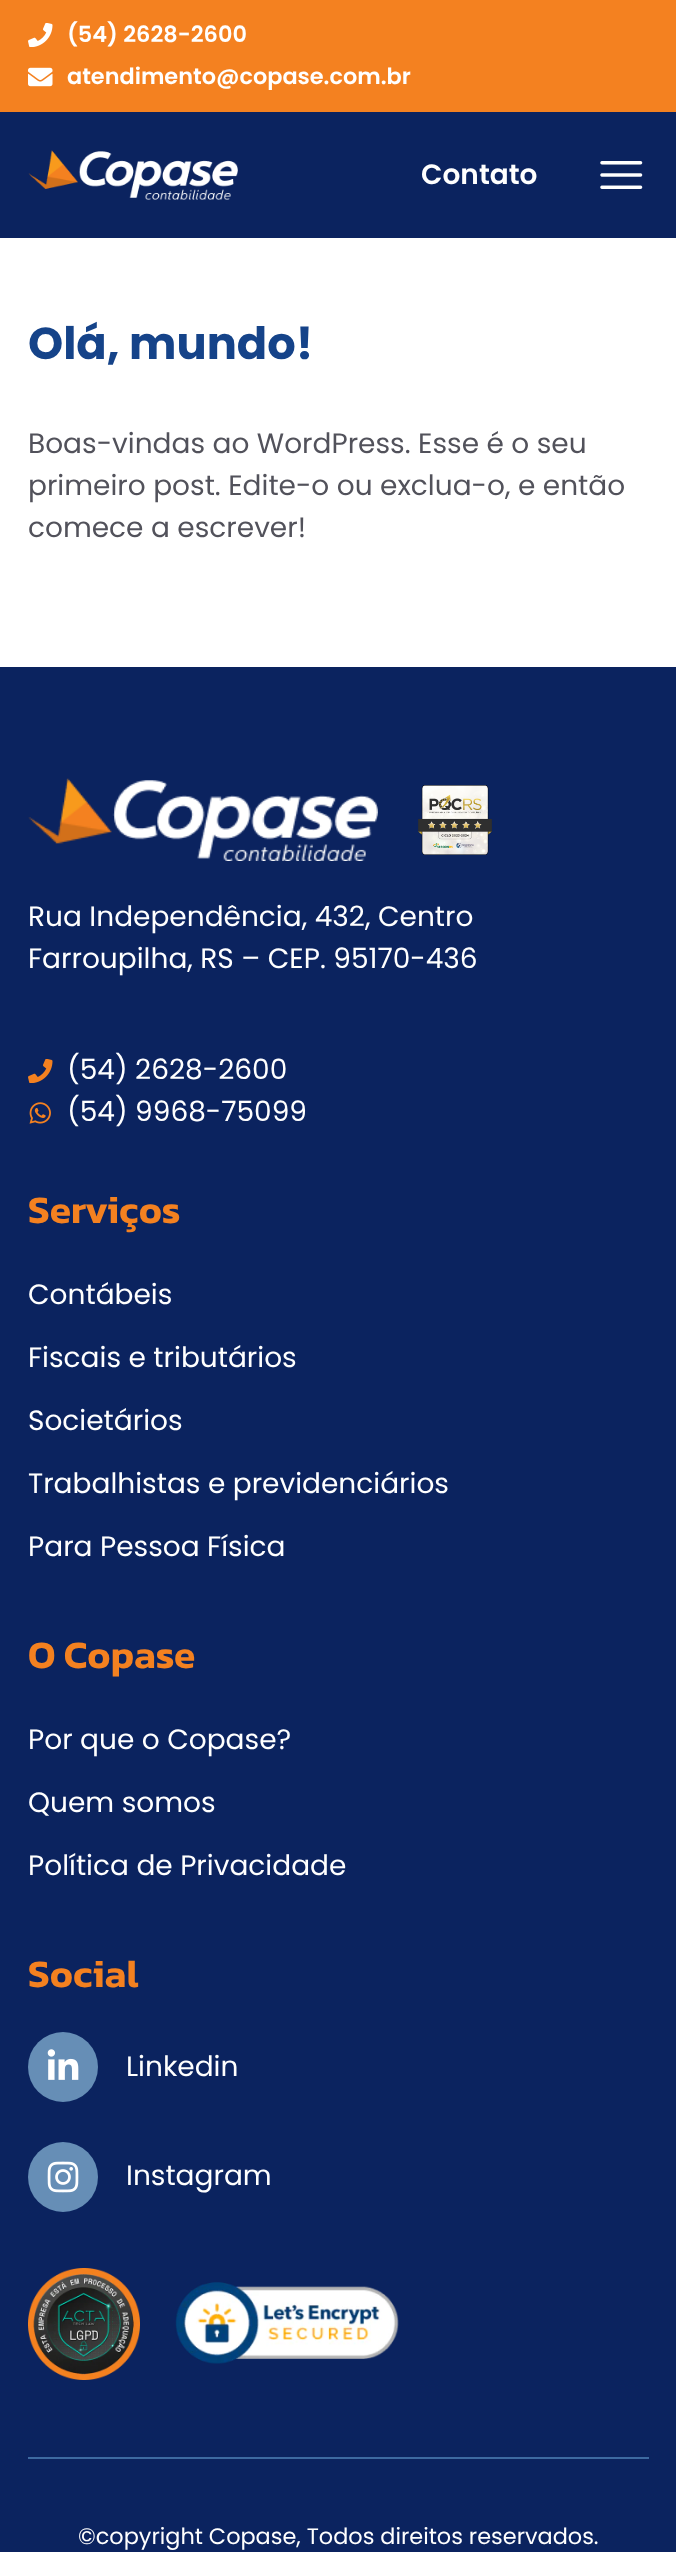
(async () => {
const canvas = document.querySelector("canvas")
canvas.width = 676
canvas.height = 2552
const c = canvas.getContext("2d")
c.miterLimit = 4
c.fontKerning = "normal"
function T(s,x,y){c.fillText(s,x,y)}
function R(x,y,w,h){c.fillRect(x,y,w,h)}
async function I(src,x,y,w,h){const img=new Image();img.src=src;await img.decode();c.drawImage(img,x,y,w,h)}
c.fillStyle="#fff"
R(0,0,676,2552)
c.fillStyle="#f48120"
R(0,0,676,112)
await I("1.png",28,23,25,24)
c.font="600 22.4px Poppins"
c.fillStyle="#fff"
T("(54) 2628-2600",67,42)
await I("2.png",28,67,25,20)
T("atendimento@copase.com.br",67,84)
c.fillStyle="#0b235f"
R(0,112,676,126)
await I("3.png",28,150,210,50)
c.font="600 28px Poppins"
c.fillStyle="#fff"
T("Contato",421,184)
await I("4.png",600,161,43,28)
c.font="bold 44.75px Poppins"
c.fillStyle="#154389"
T("Olá, mundo!",28,359)
c.font="28px Poppins"
c.fillStyle="#52525b"
T("Boas-vindas ao WordPress. Esse é o seu",28,453)
T("primeiro post. Edite-o ou exclua-o, e então",28,495)
T("comece a escrever!",28,537)
c.fillStyle="#0b235f"
R(0,667,676,1885)
await I("5.png",28,778,350,83)
await I("6.png",418,785,74,70)
c.fillStyle="#fff"
T("Rua Independência, 432, Centro",28,926)
T("Farroupilha, RS – CEP. 95170-436",28,968)
await I("7.png",28,1059,25,24)
T("(54) 2628-2600",67,1079)
await I("8.png",29,1102,22,22)
T("(54) 9968-75099",67,1121)
c.font="600 39px Kanit"
c.fillStyle="#f48120"
T("Serviços",28,1223)
c.font="28px Poppins"
c.fillStyle="#fff"
T("Contábeis",28,1304)
T("Fiscais e tributários",28,1367)
T("Societários",28,1430)
T("Trabalhistas e previdenciários",28,1493)
T("Para Pessoa Física",28,1556)
c.font="600 39px Kanit"
c.fillStyle="#f48120"
T("O Copase",28,1668)
c.font="28px Poppins"
c.fillStyle="#fff"
T("Por que o Copase?",28,1749)
T("Quem somos",28,1812)
T("Política de Privacidade",28,1875)
c.font="600 39px Kanit"
c.fillStyle="#f48120"
T("Social",28,1987)
c.fillStyle="#668eb6"
c.beginPath()
c.arc(63,2067,35,0,7)
c.fill()
await I("9.png",47,2049,32,31)
c.font="28px Poppins"
c.fillStyle="#fff"
T("Linkedin",126,2076)
c.fillStyle="#668eb6"
c.beginPath()
c.arc(63,2177,35,0,7)
c.fill()
await I("10.png",47,2161,32,32)
c.fillStyle="#fff"
T("Instagram",126,2185)
await I("11.png",28,2268,112,112)
await I("12.png",175,2282,224,82)
c.fillStyle="#3d69a0"
R(28,2457,621,2)
c.font="22.4px Poppins"
c.fillStyle="#fff"
T("©copyright Copase, Todos direitos reservados.",78,2544)
})()
